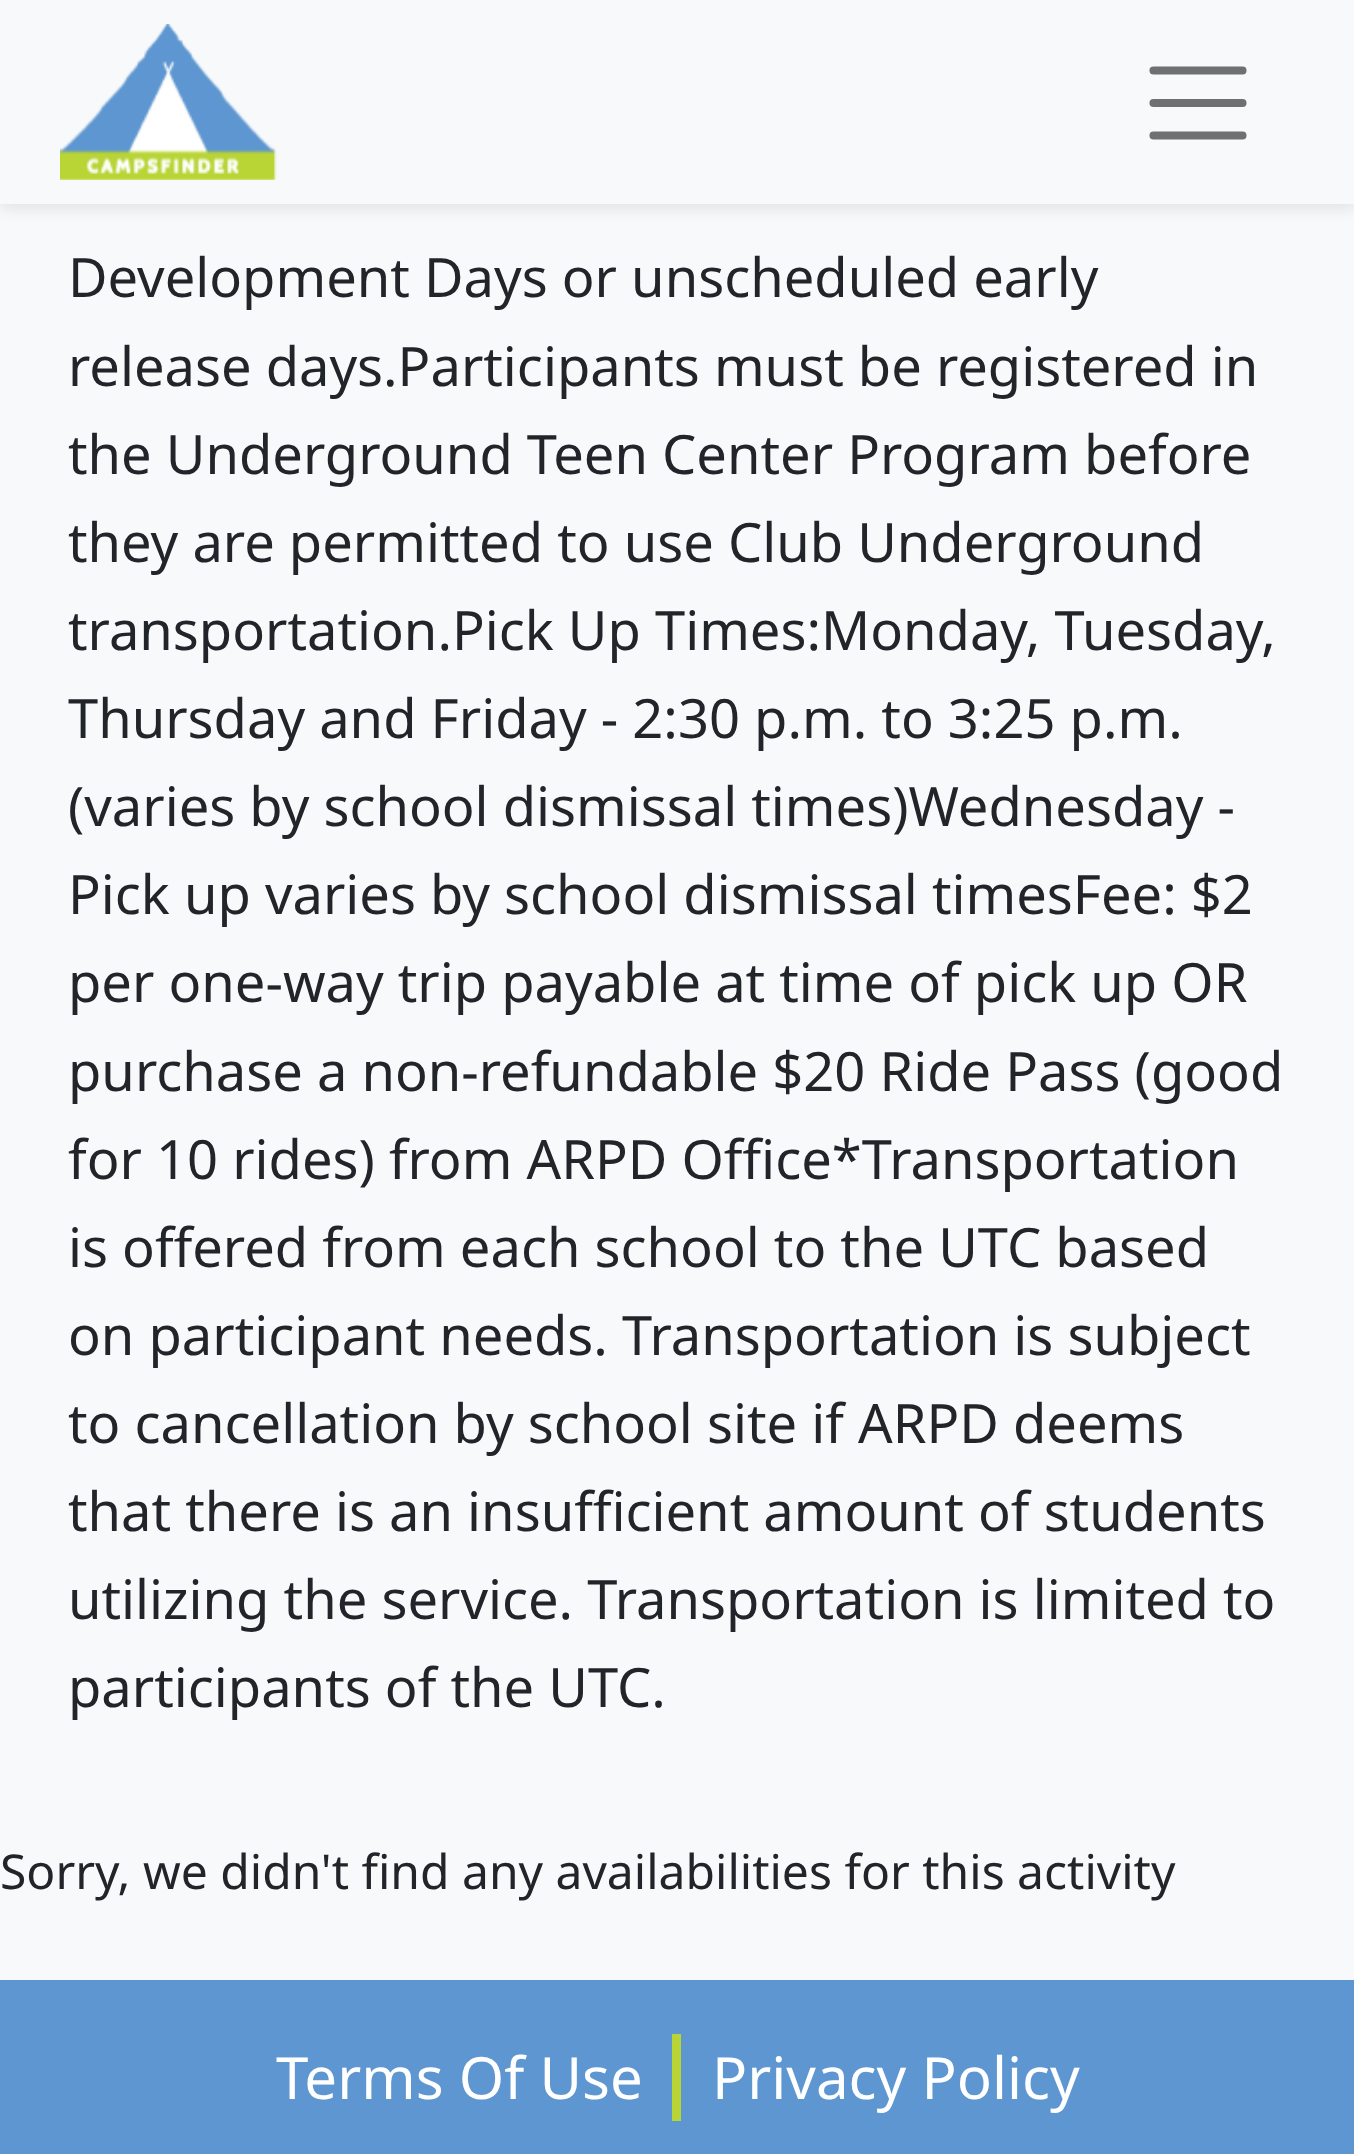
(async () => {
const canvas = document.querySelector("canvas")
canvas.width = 1354
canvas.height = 2154
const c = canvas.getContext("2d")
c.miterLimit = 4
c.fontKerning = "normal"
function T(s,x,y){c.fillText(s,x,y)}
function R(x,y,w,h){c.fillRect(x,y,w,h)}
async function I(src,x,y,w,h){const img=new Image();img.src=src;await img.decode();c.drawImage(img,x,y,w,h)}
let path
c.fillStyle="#f8f9fa"
R(0,0,1354,2154)
c.fillStyle="#00000014"
c.filter="blur(7px)"
c.beginPath()
c.rect(0,6,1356,204)
c.fill()
c.filter="none"
c.fillStyle="#f8f9fa"
R(0,0,1354,204)
await I("1.png",60,24,217,156)
path = new Path2D("M1153.5 70.5h89m-89 32.5h89m-89 32.5h89")
c.strokeStyle="#707071"
c.lineWidth=8.1
c.lineCap="round"
c.stroke(path)
c.font="54.25px Noto Sans"
c.fillStyle="#212529"
T("Development Days or unscheduled early",68,297)
T("release days.Participants must be registered in",68,386)
T("the Underground Teen Center Program before",68,474)
T("they are permitted to use Club Underground",68,562)
T("transportation.Pick Up Times:Monday, Tuesday,",68,650)
T("Thursday and Friday - 2:30 p.m. to 3:25 p.m.",68,738)
T("(varies by school dismissal times)Wednesday -",68,826)
T("Pick up varies by school dismissal timesFee: $2",68,914)
T("per one-way trip payable at time of pick up OR",68,1002)
T("purchase a non-refundable $20 Ride Pass (good",68,1091)
T("for 10 rides) from ARPD Office*Transportation",68,1179)
T("is offered from each school to the UTC based",68,1267)
T("on participant needs. Transportation is subject",68,1355)
T("to cancellation by school site if ARPD deems",68,1443)
T("that there is an insufficient amount of students",68,1531)
T("utilizing the service. Transportation is limited to",68,1619)
T("participants of the UTC.",68,1707)
c.font="48px Noto Sans"
T("Sorry, we didn't find any availabilities for this activity",0,1889)
c.fillStyle="#5d96d0"
R(0,1980,1354,174)
c.fillStyle="#b8d435"
R(672,2034,9,87)
c.font="58.25px Noto Sans"
c.fillStyle="#fff"
T("Terms Of Use",276,2099)
T("Privacy Policy",712,2099)
})()
